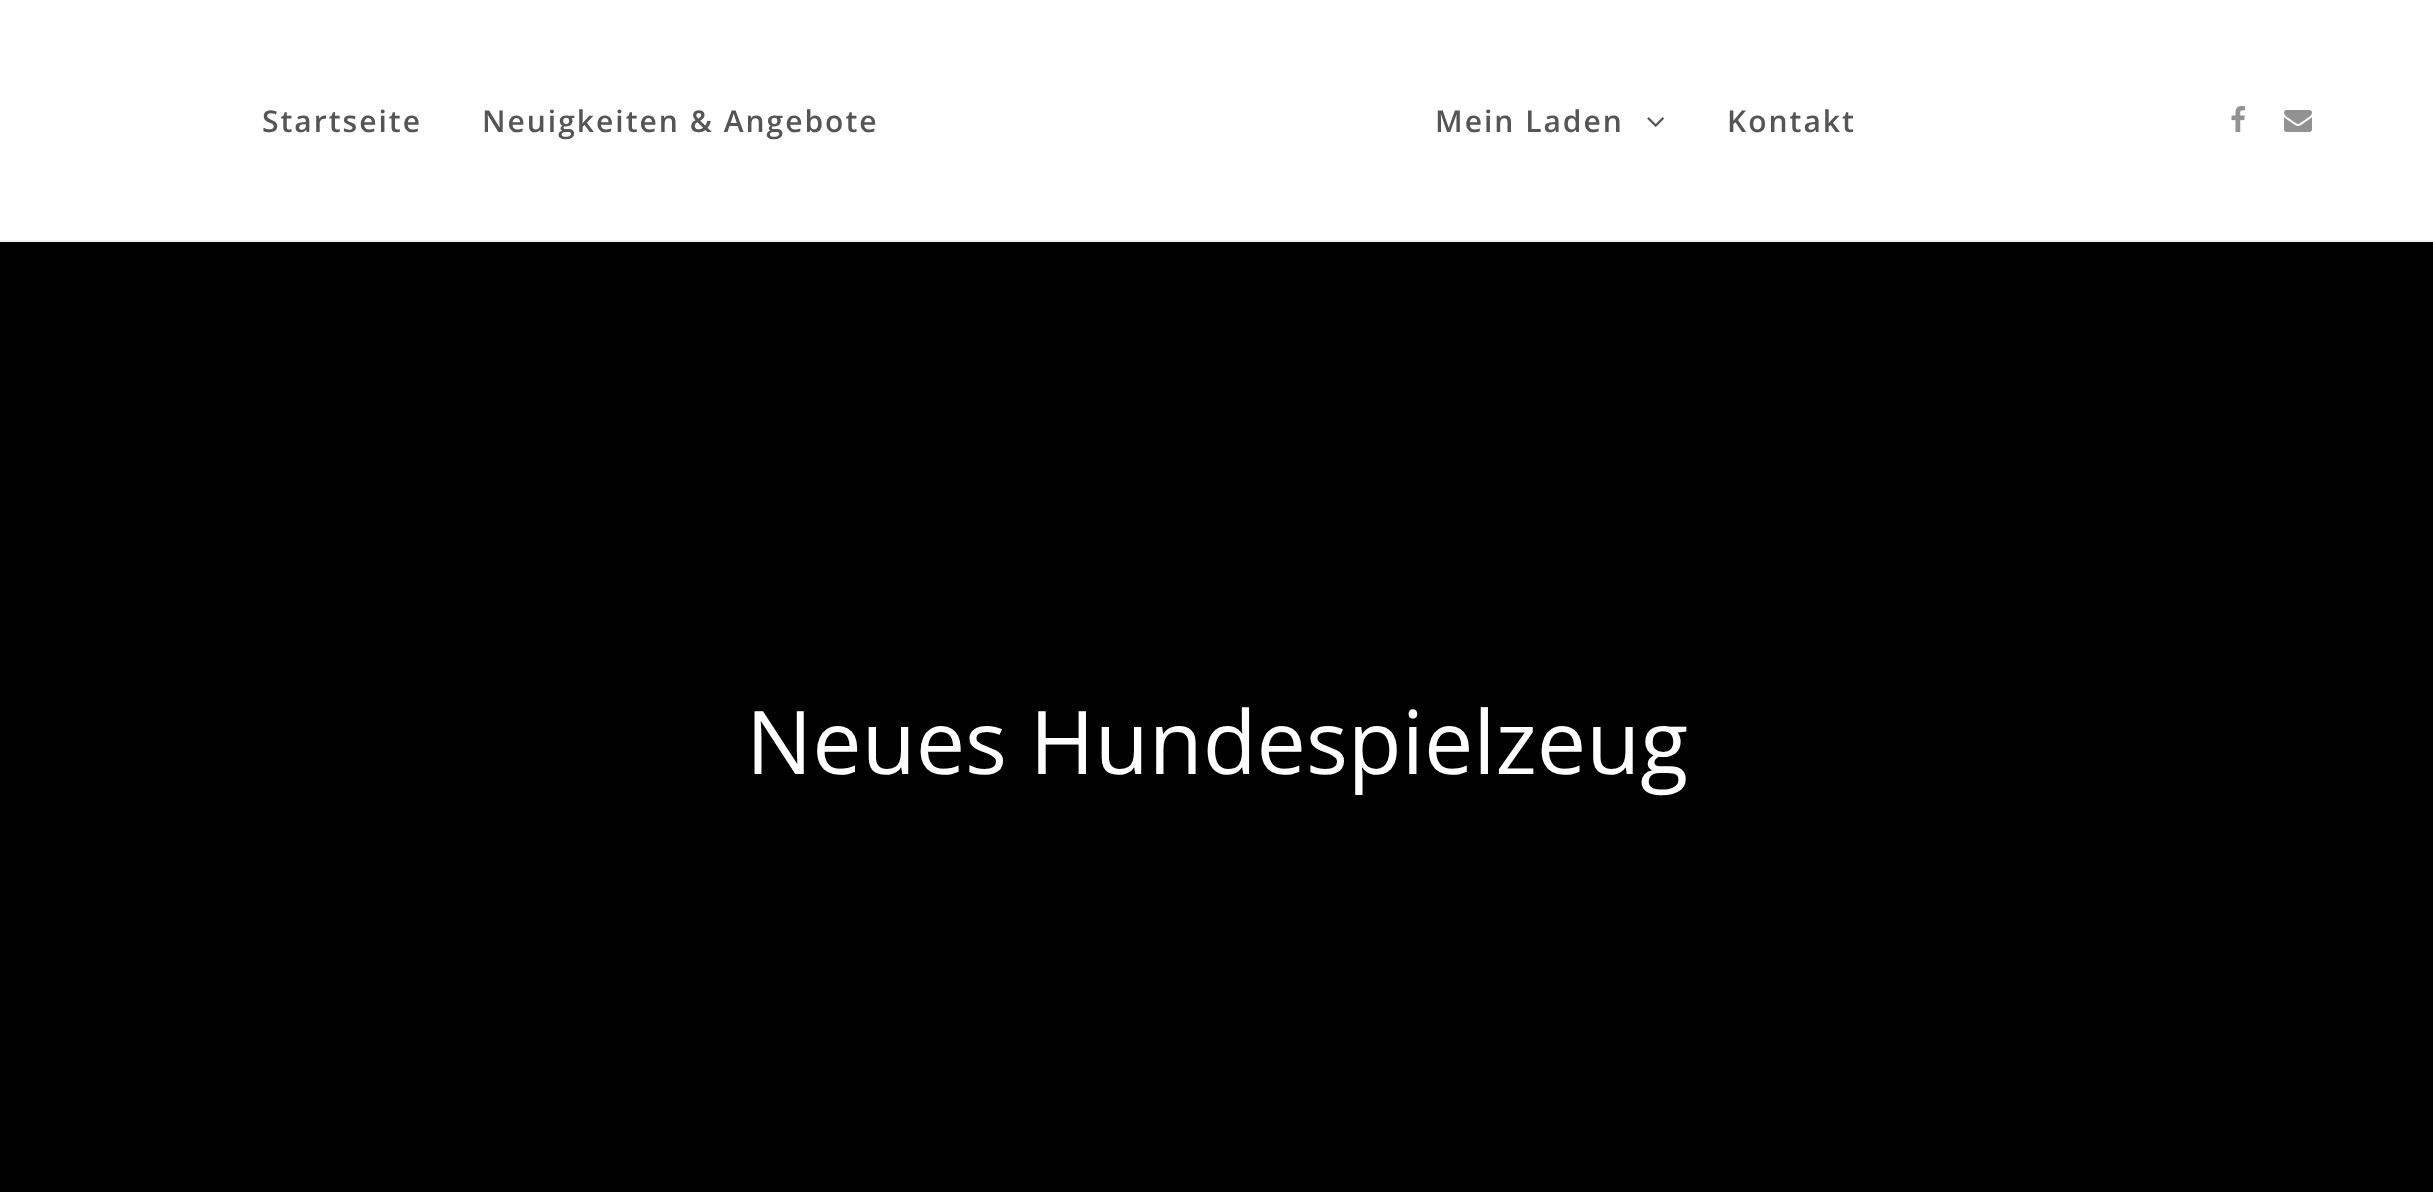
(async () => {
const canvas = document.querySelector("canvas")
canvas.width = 2433
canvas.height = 1192
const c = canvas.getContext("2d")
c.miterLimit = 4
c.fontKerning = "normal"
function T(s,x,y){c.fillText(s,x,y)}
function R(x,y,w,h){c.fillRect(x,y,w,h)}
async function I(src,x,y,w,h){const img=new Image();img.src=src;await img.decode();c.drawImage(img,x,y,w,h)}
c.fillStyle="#000"
R(0,0,2433,1192)
c.fillStyle="#fff"
R(0,0,2433,240)
c.fillStyle="#f1f1f1"
R(0,240,2433,2)
c.letterSpacing="2px"
c.font="600 30px Open Sans"
c.fillStyle="#555"
T("Startseite",262,132)
T("Neuigkeiten & Angebote",482,132)
T("Mein Laden",1435,132)
await I("1.png",1647,117,17,10)
T("Kontakt",1727,132)
await I("2.png",2231,106,14,26)
await I("3.png",2284,110,28,22)
c.letterSpacing="0px"
c.font="88px Open Sans"
c.fillStyle="#fff"
T("Neues Hundespielzeug",746,774)
})()
